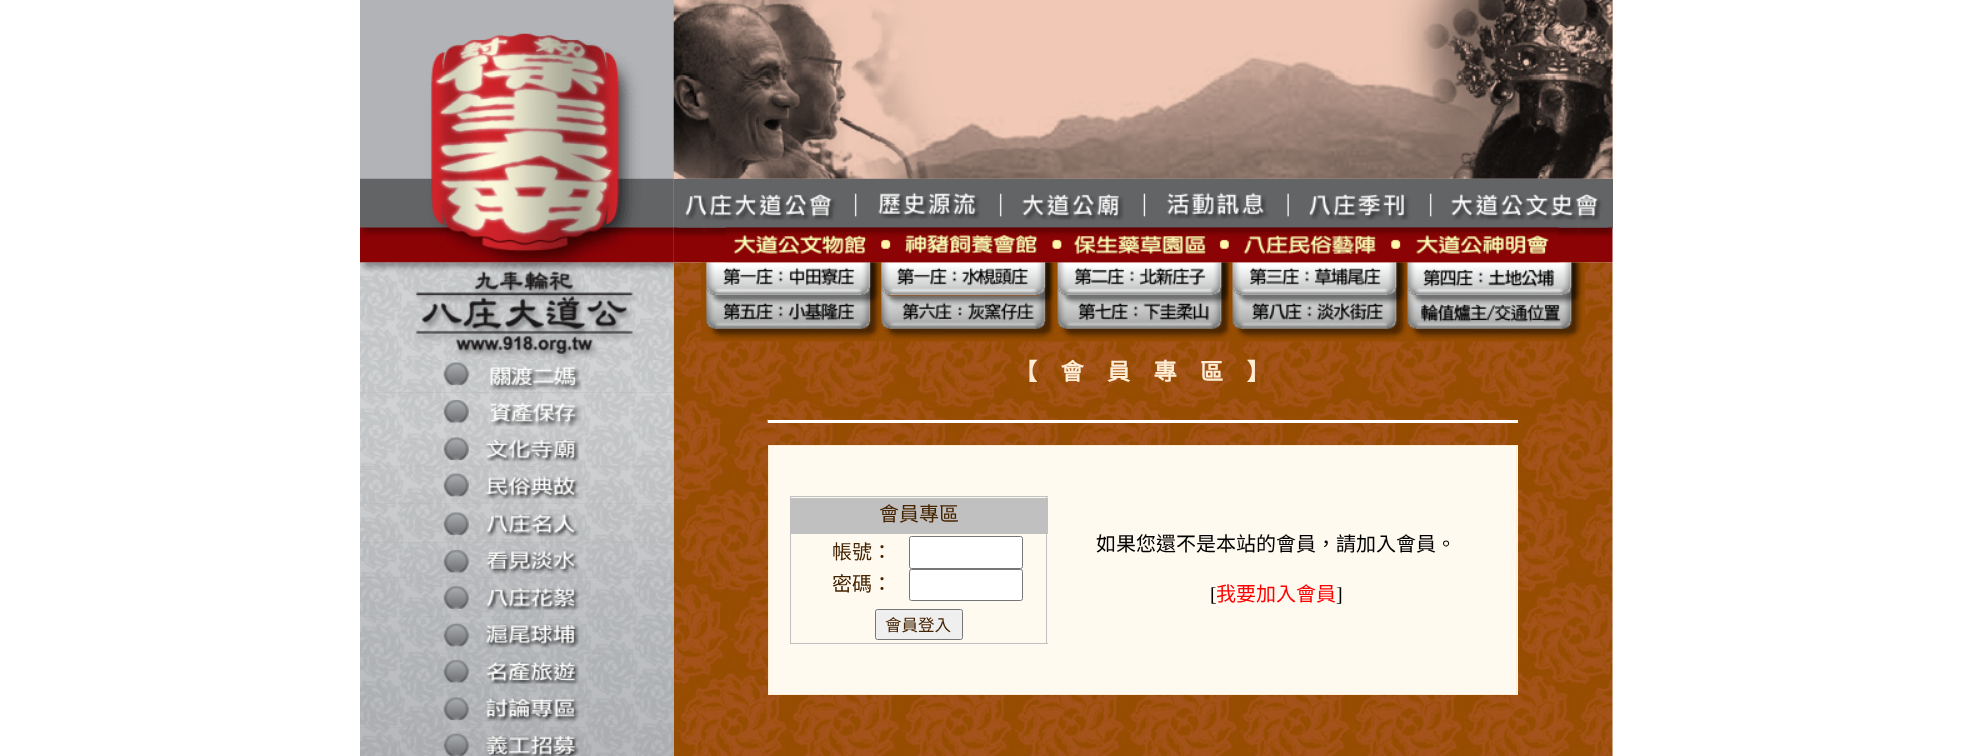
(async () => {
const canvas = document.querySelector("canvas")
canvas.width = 1971
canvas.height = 756
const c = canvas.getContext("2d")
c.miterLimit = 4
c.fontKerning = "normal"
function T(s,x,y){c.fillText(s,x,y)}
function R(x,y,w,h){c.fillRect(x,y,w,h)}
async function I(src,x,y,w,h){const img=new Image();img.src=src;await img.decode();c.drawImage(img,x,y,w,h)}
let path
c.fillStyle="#fff"
R(0,0,1971,756)
c.fillStyle="#b1b3b6"
R(360,0,314,263)
c.fillStyle="#636466"
R(674,179,939,49)
await I("14.png",673,227,940,36)
await I("24.png",360,262,314,494)
await I("37.png",673,262,940,494)
await I("1.png",360,33,314,230)
c.fillStyle="#f0c8b5"
R(674,0,939,179)
await I("2.png",673,0,940,179)
await I("3.png",677,178,165,50)
await I("4.png",841,178,27,50)
await I("5.png",867,178,120,50)
await I("6.png",986,178,27,50)
await I("7.png",1012,178,118,50)
await I("8.png",1130,178,27,50)
await I("9.png",1156,178,118,50)
await I("10.png",1273,178,27,50)
await I("11.png",1300,178,117,50)
await I("12.png",1416,178,27,50)
await I("13.png",1442,178,166,50)
await I("15.png",726,227,149,36)
await I("16.png",875,227,22,36)
await I("17.png",896,227,151,36)
await I("18.png",1046,227,22,36)
await I("19.png",1067,227,147,36)
await I("20.png",1213,227,22,36)
await I("21.png",1235,227,150,36)
await I("22.png",1385,227,22,36)
await I("23.png",1406,227,153,36)
await I("25.png",360,262,314,98)
await I("26.png",360,360,314,33)
await I("27.png",360,392,314,38)
await I("28.png",360,430,314,37)
await I("29.png",360,466,314,38)
await I("30.png",360,503,314,40)
await I("31.png",360,542,314,36)
await I("32.png",360,577,314,40)
await I("33.png",360,616,314,38)
await I("34.png",360,654,314,36)
await I("35.png",360,690,314,38)
await I("36.png",360,727,314,29)
c.fillStyle="#974d02"
R(701,263,884,78)
await I("38.png",701,262,178,33)
await I("39.png",879,262,176,33)
await I("40.png",1055,262,175,33)
await I("41.png",1230,262,175,33)
await I("42.png",1405,262,180,33)
await I("43.png",702,295,177,47)
await I("44.png",879,295,176,47)
await I("45.png",1055,295,175,47)
await I("46.png",1230,295,175,47)
await I("47.png",1405,295,177,47)
c.font="bold 23.25px Noto Sans CJK TC"
c.fillStyle="#ffeed5"
T("【　會　員　專　區　】",1014,380)
c.fillStyle="#fff"
R(768,420,750,3)
path = new Path2D("M767.5 420.5h750")
c.strokeStyle="#fff"
c.lineWidth=1.2
c.setLineDash([1.25,1.25])
c.stroke(path)
path = new Path2D("M767.5 422h750")
c.stroke(path)
c.fillStyle="#ffeed5"
R(768,445,750,1)
c.fillStyle="#fffaf0"
R(769,446,749,248)
c.fillStyle="#ffeed5"
R(1516,445,1,250)
R(768,694,750,1)
R(768,445,1,250)
c.fillStyle="#c0c0c0"
R(790,496,258,1)
R(791,498,257,36)
R(1046,496,1,148)
R(790,643,258,1)
R(790,496,1,148)
c.font="20px Noto Sans CJK TC"
c.fillStyle="#462300"
T("會員專區",879,521)
T("帳號：",832,559)
c.fillStyle="#fff"
c.beginPath()
c.roundRect(909.5,536.5,113,32,2)
c.fill()
c.strokeStyle="#767676"
c.lineWidth=1
c.setLineDash([])
c.stroke()
c.fillStyle="#462300"
T("密碼：",832,591)
c.fillStyle="#fff"
c.beginPath()
c.roundRect(909.5,569.5,113,31,2)
c.fill()
c.stroke()
c.fillStyle="#efefef"
c.beginPath()
c.roundRect(875.5,609.5,87,30,2)
c.fill()
c.stroke()
c.font="16.5px Noto Sans CJK TC"
c.fillStyle="#462300"
T("會員登入",885,631)
c.font="20px Noto Sans CJK TC"
c.fillStyle="#000"
T("如果您還不是本站的會員，請加入會員。",1096,551)
c.font="20px Liberation Serif"
T("[",1210,601)
c.font="20px Noto Sans CJK TC"
c.fillStyle="#f00"
T("我要加入會員",1216,601)
c.font="20px Liberation Serif"
c.fillStyle="#000"
T("]",1336,601)
})()
